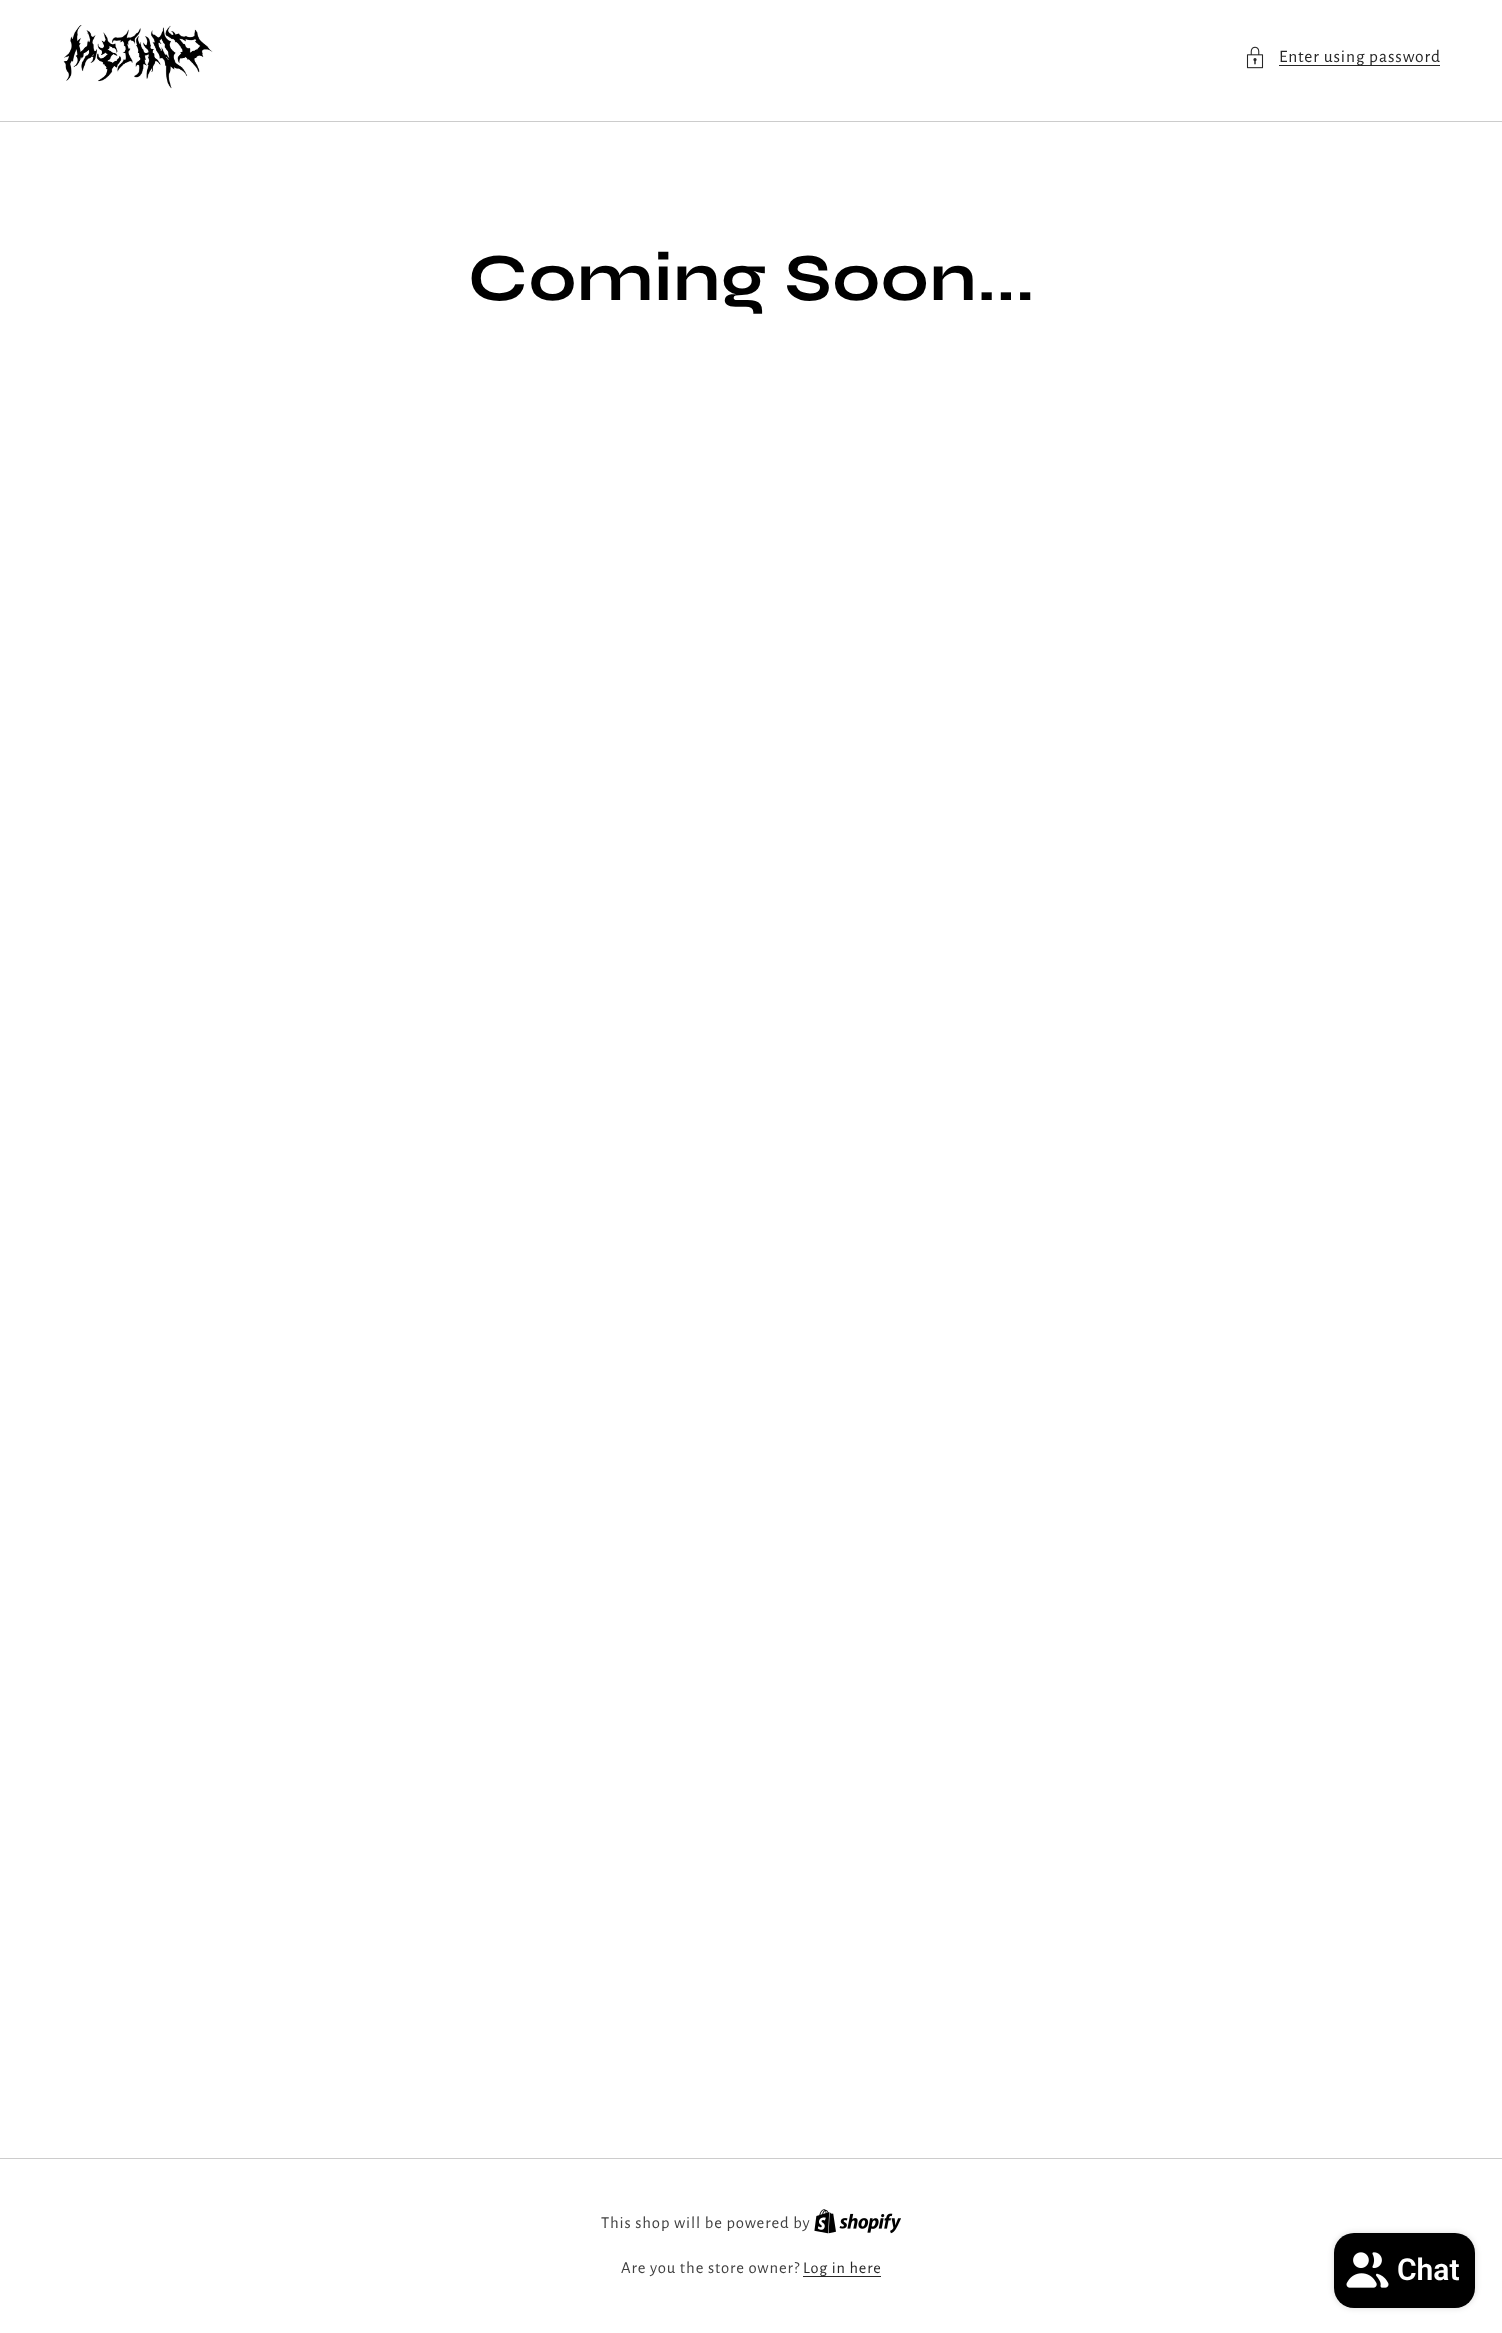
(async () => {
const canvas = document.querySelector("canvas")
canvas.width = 1502
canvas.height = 2333
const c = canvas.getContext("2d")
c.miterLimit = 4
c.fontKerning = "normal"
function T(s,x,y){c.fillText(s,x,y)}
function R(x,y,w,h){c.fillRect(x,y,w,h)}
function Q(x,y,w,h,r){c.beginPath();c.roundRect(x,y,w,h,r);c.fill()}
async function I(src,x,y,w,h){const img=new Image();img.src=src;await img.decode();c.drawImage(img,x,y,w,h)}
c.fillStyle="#fff"
R(0,0,1502,2333)
await I("1.png",63,25,150,64)
await I("2.png",1246,46,18,23)
c.fillStyle="#262626"
R(1279,65,161,1)
c.letterSpacing="0.9px"
c.font="17.5px Alegreya Sans"
T("Enter using password",1279,62)
c.fillStyle="#ccc"
R(0,121,1502,1)
c.letterSpacing="1px"
c.font="bold 67.5px Syne"
c.fillStyle="#000"
T("Coming Soon...",468,300)
c.fillStyle="#ccc"
R(0,2158,1502,1)
c.letterSpacing="0.9px"
c.font="16.7px Alegreya Sans"
c.fillStyle="#404040"
T("This shop will be powered by",601,2228)
await I("3.png",814,2209,87,25)
T("Are you the store owner?",621,2273)
c.fillStyle="#262626"
R(803,2276,78,1)
c.font="16.25px Alegreya Sans"
T("Log in here",803,2273)
c.fillStyle="#00000026"
c.filter="blur(3px)"
c.beginPath()
c.roundRect(1334,2233,141,75,20)
c.fill()
c.filter="none"
c.fillStyle="#000"
Q(1334,2233,141,75,20)
await I("4.png",1346,2252,43,36)
c.letterSpacing="0px"
c.font="600 30px Roboto"
c.fillStyle="#fff"
T("Chat",1397,2280)
})()
